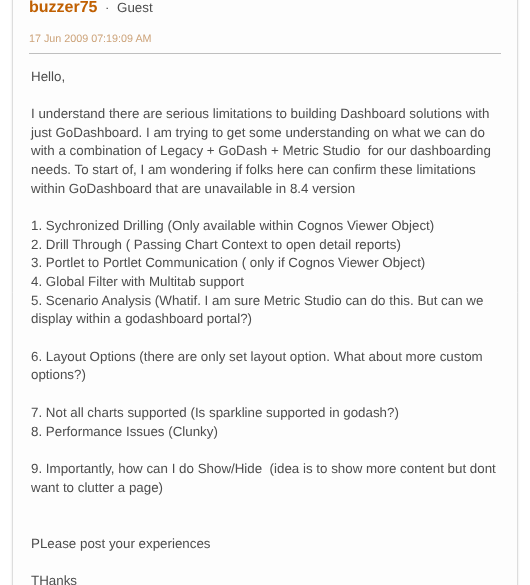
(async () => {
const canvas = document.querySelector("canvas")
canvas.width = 530
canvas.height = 585
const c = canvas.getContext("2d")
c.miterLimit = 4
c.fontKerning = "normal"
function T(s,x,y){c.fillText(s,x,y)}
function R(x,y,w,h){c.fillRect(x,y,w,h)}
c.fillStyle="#fff"
R(0,0,530,585)
c.fillStyle="#0000001a"
c.filter="blur(1px)"
c.beginPath()
c.roundRect(12,-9,506,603,6)
c.fill()
c.filter="none"
c.fillStyle="#fdfdfd"
c.beginPath()
c.rect(12.5,-.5,505,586)
c.fill()
c.strokeStyle="#ddd"
c.stroke()
c.font="bold 16px Liberation Sans"
c.fillStyle="#c06002"
T("buzzer75",29,12)
c.font="13.35px Liberation Sans"
c.fillStyle="#4d4d4d"
T("·",105,12)
T("Guest",117,12)
c.font="10.75px Liberation Sans"
c.fillStyle="#cda47b"
T("17 Jun 2009 07:19:09 AM",29,42)
c.fillStyle="#bfbfbf"
R(29,53,472,1)
c.font="13.35px Liberation Sans"
c.fillStyle="#4d4d4d"
T("Hello,",31,81)
T("I understand there are serious limitations to building Dashboard solutions with",31,118)
T("just GoDashboard. I am trying to get some understanding on what we can do",31,137)
T("with a combination of Legacy + GoDash + Metric Studio  for our dashboarding",31,155)
T("needs. To start of, I am wondering if folks here can confirm these limitations",31,174)
T("within GoDashboard that are unavailable in 8.4 version",31,193)
T("1. Sychronized Drilling (Only available within Cognos Viewer Object)",31,230)
T("2. Drill Through ( Passing Chart Context to open detail reports)",31,249)
T("3. Portlet to Portlet Communication ( only if Cognos Viewer Object)",31,267)
T("4. Global Filter with Multitab support",31,286)
T("5. Scenario Analysis (Whatif. I am sure Metric Studio can do this. But can we",31,305)
T("display within a godashboard portal?)",31,323)
T("6. Layout Options (there are only set layout option. What about more custom",31,361)
T("options?)",31,379)
T("7. Not all charts supported (Is sparkline supported in godash?)",31,417)
T("8. Performance Issues (Clunky)",31,436)
T("9. Importantly, how can I do Show/Hide  (idea is to show more content but dont",31,473)
T("want to clutter a page)",31,492)
T("PLease post your experiences",31,548)
T("THanks",31,585)
})()
